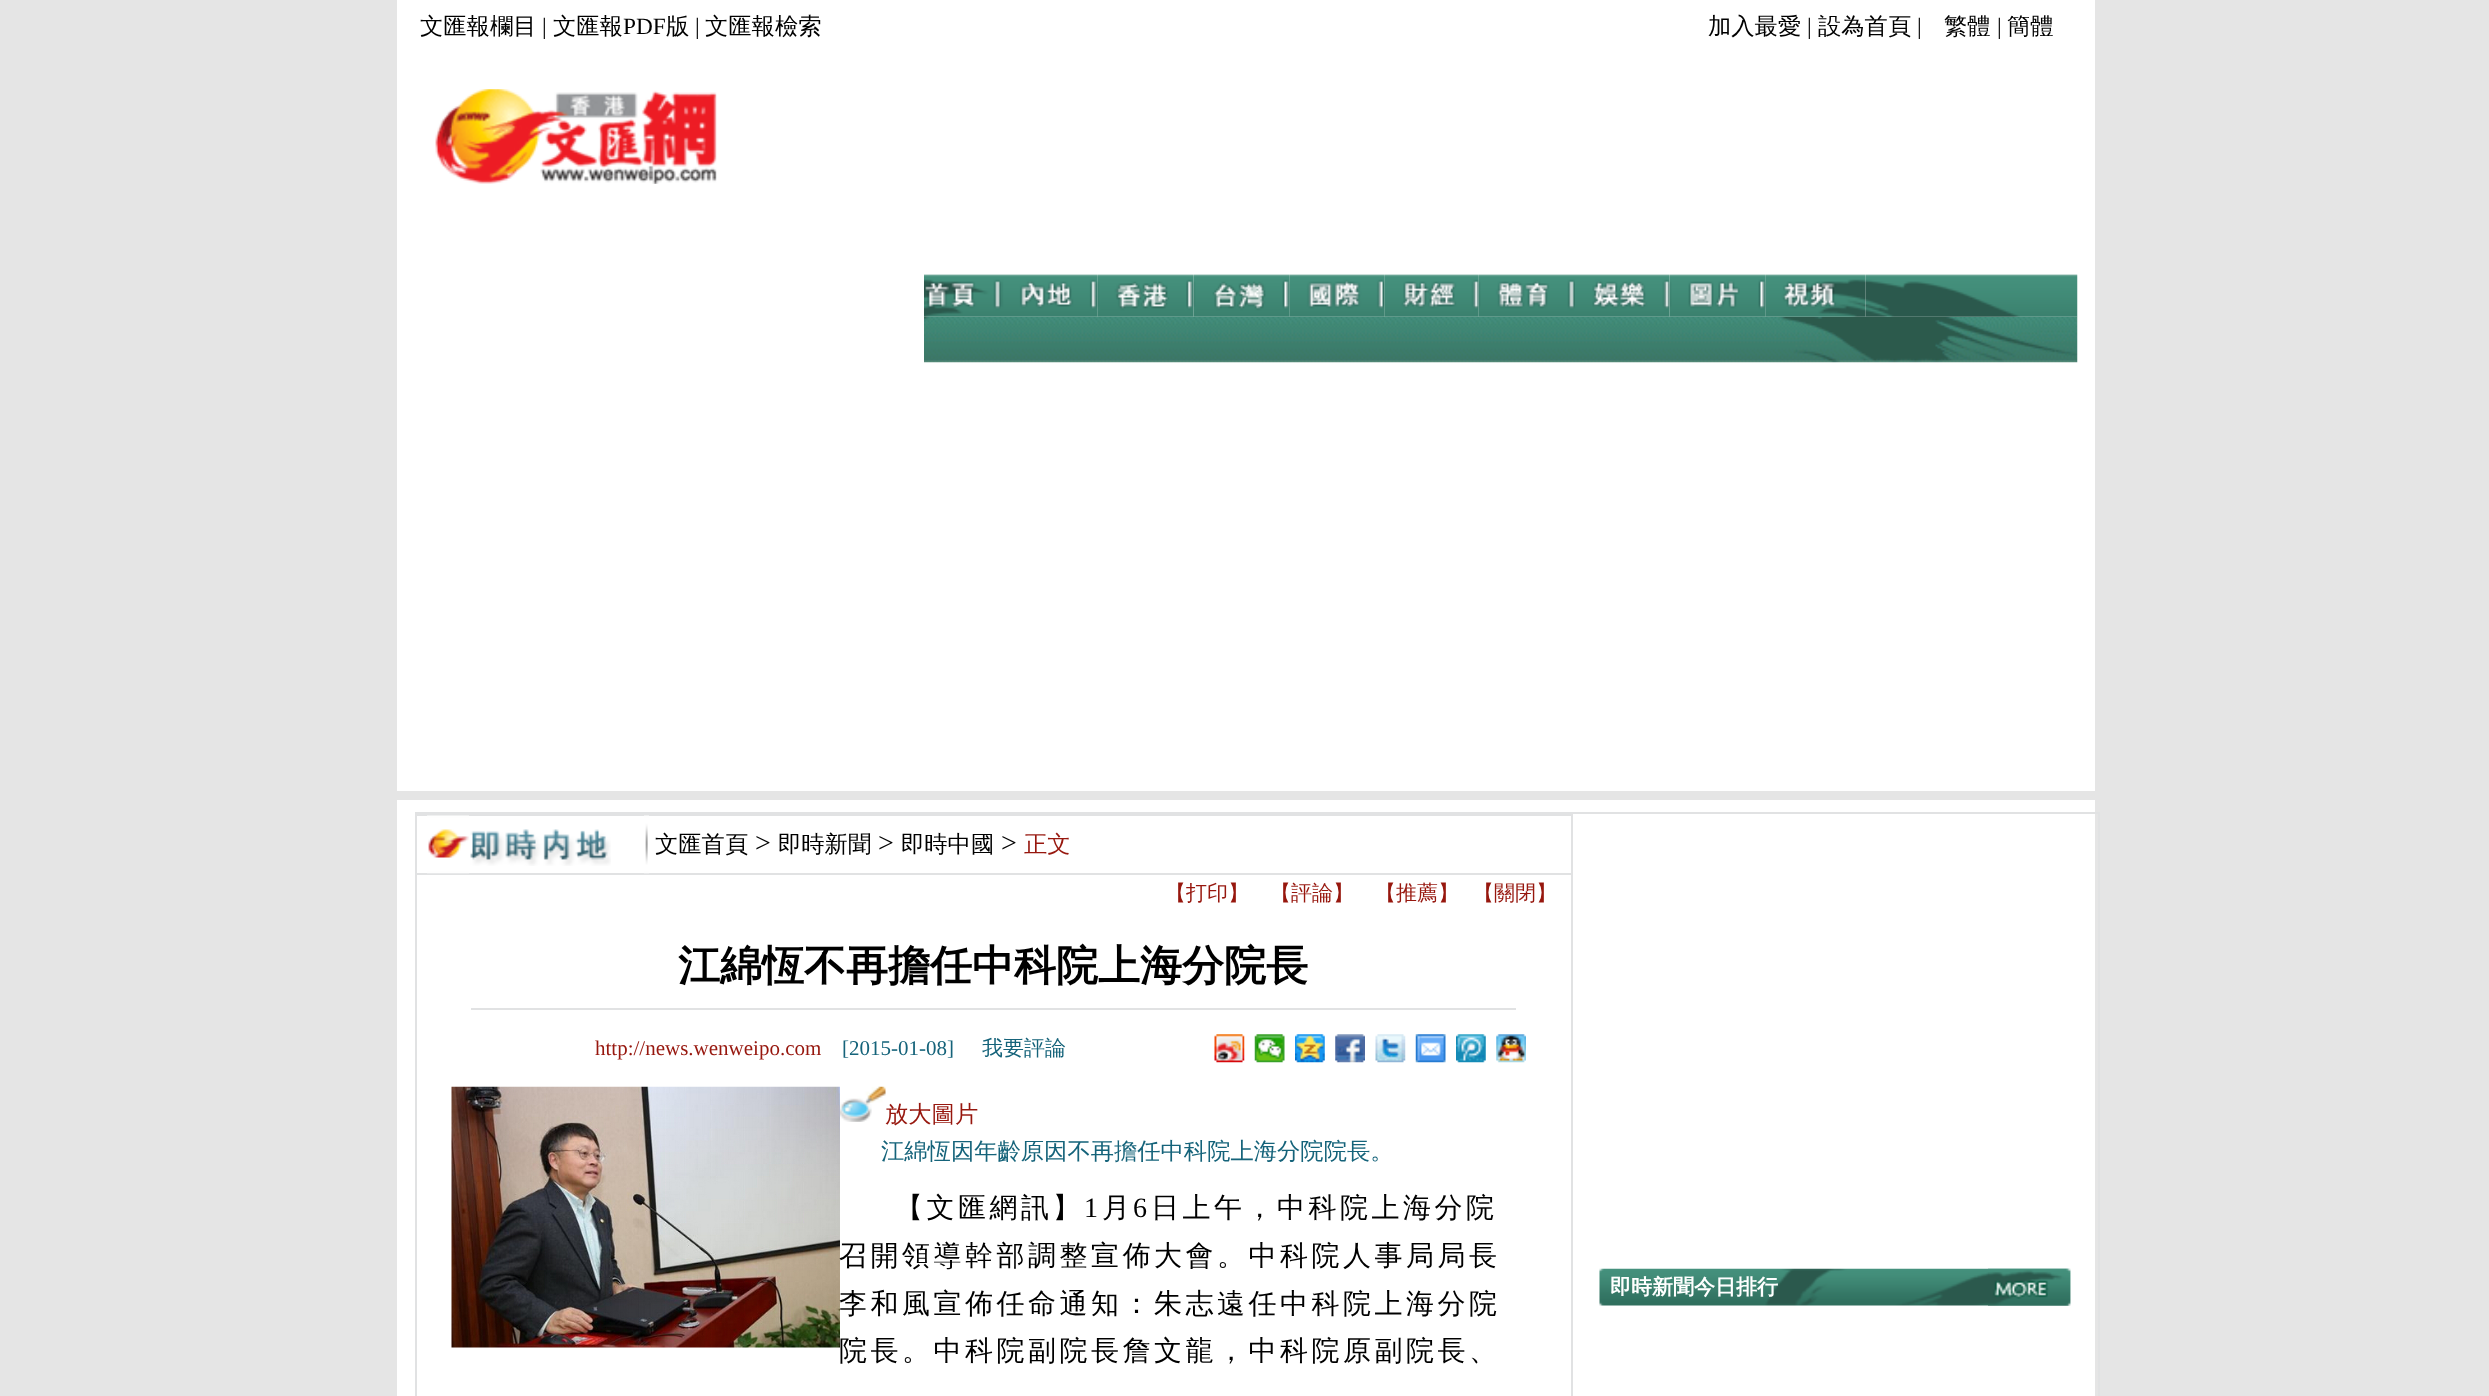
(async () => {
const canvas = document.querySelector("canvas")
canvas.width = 2489
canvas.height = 1396
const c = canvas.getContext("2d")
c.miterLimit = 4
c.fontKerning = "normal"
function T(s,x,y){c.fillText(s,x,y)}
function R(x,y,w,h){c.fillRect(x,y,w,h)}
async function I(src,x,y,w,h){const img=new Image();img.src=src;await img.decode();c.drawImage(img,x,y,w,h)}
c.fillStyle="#e5e5e5"
R(0,0,2489,1396)
c.fillStyle="#fff"
R(397,0,1698,791)
c.font="500 23.3px WenQuanYi Zen Hei"
c.fillStyle="#000"
T("文匯報欄目",420,34)
c.font="23.3px Liberation Serif"
T("|",542,34)
c.font="500 23.3px WenQuanYi Zen Hei"
T("文匯報",553,34)
c.font="23.3px Liberation Serif"
T("PDF",623,34)
c.font="500 23.3px WenQuanYi Zen Hei"
T("版",666,34)
c.font="23.3px Liberation Serif"
T("|",695,34)
c.font="500 23.3px WenQuanYi Zen Hei"
T("文匯報檢索",705,34)
T("加入最愛",1708,34)
c.font="23.3px Liberation Serif"
T("|",1807,34)
c.font="500 23.3px WenQuanYi Zen Hei"
T("設為首頁",1818,34)
c.font="23.3px Liberation Serif"
T("|",1917,34)
c.font="500 23.3px WenQuanYi Zen Hei"
T("繁體",1944,34)
c.font="23.3px Liberation Serif"
T("|",1997,34)
c.font="500 23.3px WenQuanYi Zen Hei"
T("簡體",2007,34)
await I("1.png",435,89,282,95)
await I("13.png",924,316,1154,47)
await I("2.png",924,274,77,43)
await I("3.png",1001,274,97,43)
await I("4.png",1097,274,97,43)
await I("5.png",1193,274,97,43)
await I("6.png",1289,274,96,43)
await I("7.png",1384,274,95,43)
await I("8.png",1478,274,97,43)
await I("9.png",1575,274,95,43)
await I("10.png",1669,274,97,43)
await I("11.png",1765,274,101,43)
await I("12.png",1865,274,213,43)
c.fillStyle="#fff"
R(397,800,1698,596)
c.strokeStyle="#e1e2e3"
c.lineWidth=2
c.strokeRect(416,813,1156,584)
c.fillStyle="#e1e2e3"
R(417,814,1155,2)
R(417,873,1155,2)
await I("14.png",427,815,42,59)
await I("15.png",470,829,141,37)
await I("16.png",644,815,5,59)
c.fillStyle="#000"
T("文匯首頁",655,852)
c.font="28px Liberation Serif"
T(">",755,852)
c.font="500 23.3px WenQuanYi Zen Hei"
T("即時新聞",778,852)
c.font="28px Liberation Serif"
T(">",878,852)
c.font="500 23.3px WenQuanYi Zen Hei"
T("即時中國",901,852)
c.font="28px Liberation Serif"
T(">",1001,852)
c.font="500 23.3px WenQuanYi Zen Hei"
c.fillStyle="#97170e"
T("正文",1024,852)
c.font="500 21px WenQuanYi Zen Hei"
T("【打印】",1165,900)
T("【評論】",1270,900)
T("【推薦】",1375,900)
T("【關閉】",1473,900)
c.font="bold 42px WenQuanYi Zen Hei"
c.fillStyle="#000"
T("江綿恆不再擔任中科院上海分院長",678,980)
c.fillStyle="#e1e2e3"
R(471,1008,1045,2)
c.font="21px Liberation Serif"
c.fillStyle="#97170e"
T("http://news.wenweipo.com",595,1055)
c.fillStyle="#15637a"
T("[2015-01-08]",842,1055)
c.font="500 21px WenQuanYi Zen Hei"
T("我要評論",982,1055)
await I("17.png",1214,1034,31,29)
await I("18.png",1254,1034,31,29)
await I("19.png",1295,1034,30,29)
await I("20.png",1335,1034,30,29)
await I("21.png",1375,1034,31,29)
await I("22.png",1415,1034,31,29)
await I("23.png",1456,1034,30,29)
await I("24.png",1496,1034,30,29)
await I("25.png",451,1086,389,262)
await I("26.png",840,1086,46,36)
c.font="500 23.3px WenQuanYi Zen Hei"
c.fillStyle="#97170e"
T("放大圖片",885,1122)
c.fillStyle="#15637a"
T("江綿恆因年齡原因不再擔任中科院上海分院院長。",881,1159)
c.letterSpacing="3.5px"
c.font="500 28px WenQuanYi Zen Hei"
c.fillStyle="#000"
T("【文匯網訊】",895,1217)
c.font="28px Liberation Serif"
T("1",1084,1217)
c.font="500 28px WenQuanYi Zen Hei"
T("月",1102,1217)
c.font="28px Liberation Serif"
T("6",1133,1217)
c.font="500 28px WenQuanYi Zen Hei"
T("日上午，中科院上海分院",1151,1217)
T("召開領導幹部調整宣佈大會。中科院人事局局長",839,1265)
T("李和風宣佈任命通知：朱志遠任中科院上海分院",839,1313)
T("院長。中科院副院長詹文龍，中科院原副院長、",839,1360)
c.fillStyle="#e1e2e3"
R(1573,812,527,2)
R(2098,812,2,584)
await I("27.png",1599,1268,472,38)
c.letterSpacing="0px"
c.font="bold 21px WenQuanYi Zen Hei"
c.fillStyle="#fff"
T("即時新聞今日排行",1610,1294)
await I("28.png",1988,1268,83,38)
})()
